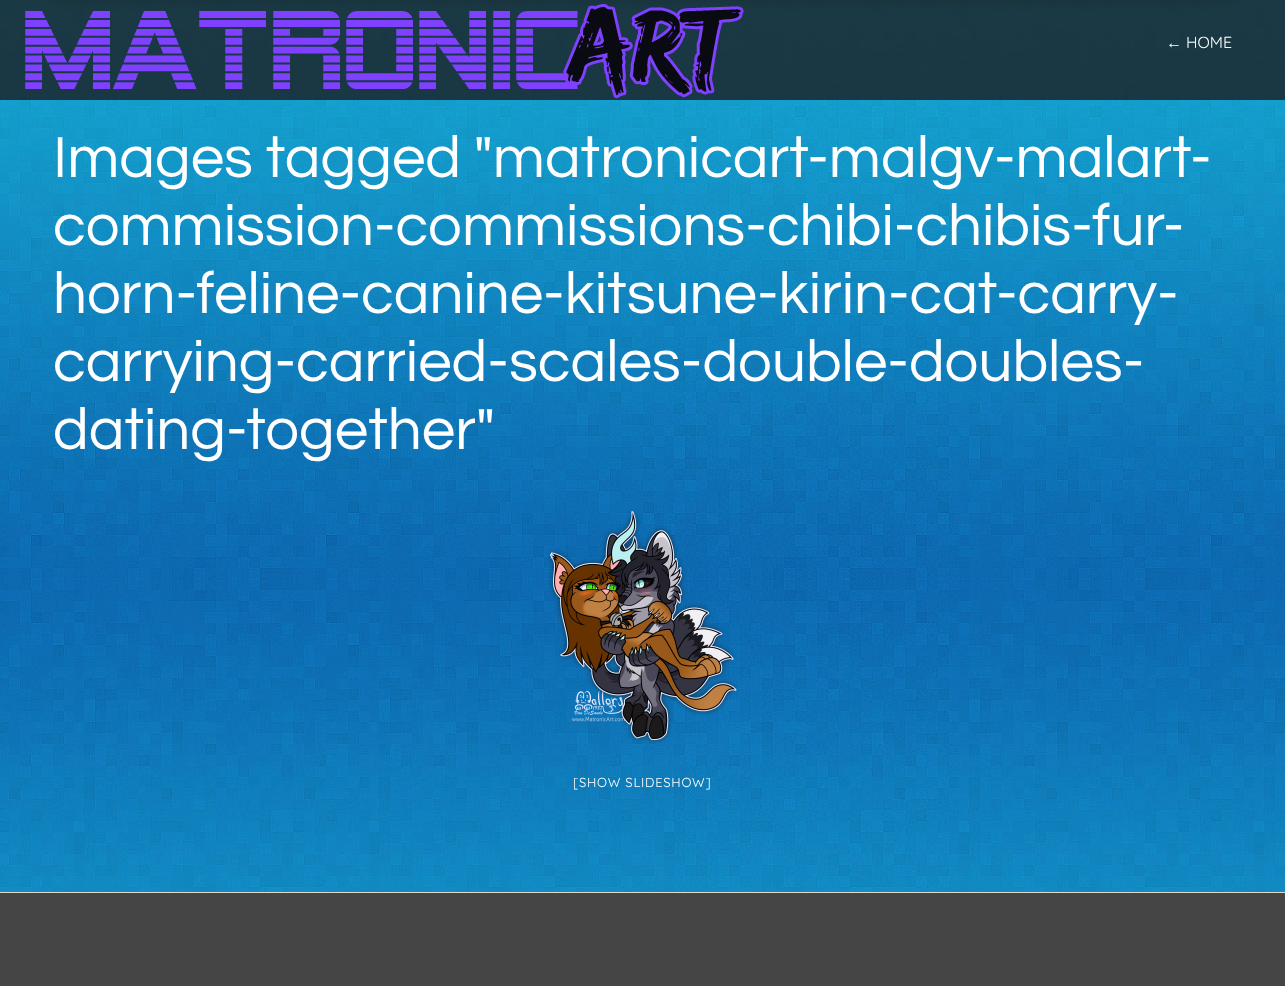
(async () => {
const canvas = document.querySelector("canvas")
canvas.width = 1285
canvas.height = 986
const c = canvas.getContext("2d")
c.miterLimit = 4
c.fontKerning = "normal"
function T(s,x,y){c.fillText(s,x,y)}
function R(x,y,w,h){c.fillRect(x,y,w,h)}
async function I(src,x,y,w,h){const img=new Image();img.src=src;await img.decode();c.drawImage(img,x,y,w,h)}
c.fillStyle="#454545"
R(0,0,1285,986)
await I("2.png",0,0,1285,892)
c.fillStyle="#00000033"
c.filter="blur(5px)"
c.beginPath()
c.roundRect(40,-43,1206,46,28)
c.fill()
c.filter="none"
c.fillStyle="#1b1e20cc"
R(0,0,1285,100)
await I("1.png",25,4,719,95)
c.font="16px Liberation Sans"
c.fillStyle="#fff"
T("←",1166,48)
c.font="300 16px Quicksand"
T("HOME",1186,48)
c.fillStyle="#e0d8c8"
R(0,892,1285,1)
c.font="60px Questrial"
c.fillStyle="#fff"
T("Images tagged \"matronicart-malgv-malart-",53,177)
T("commission-commissions-chibi-chibis-fur-",53,245)
T("horn-feline-canine-kitsune-kirin-cat-carry-",53,313)
T("carrying-carried-scales-double-doubles-",53,381)
T("dating-together\"",53,449)
await I("3.png",548,511,190,233)
c.letterSpacing="0.75px"
c.font="300 13px Quicksand"
T("[SHOW SLIDESHOW]",573,787)
})()
